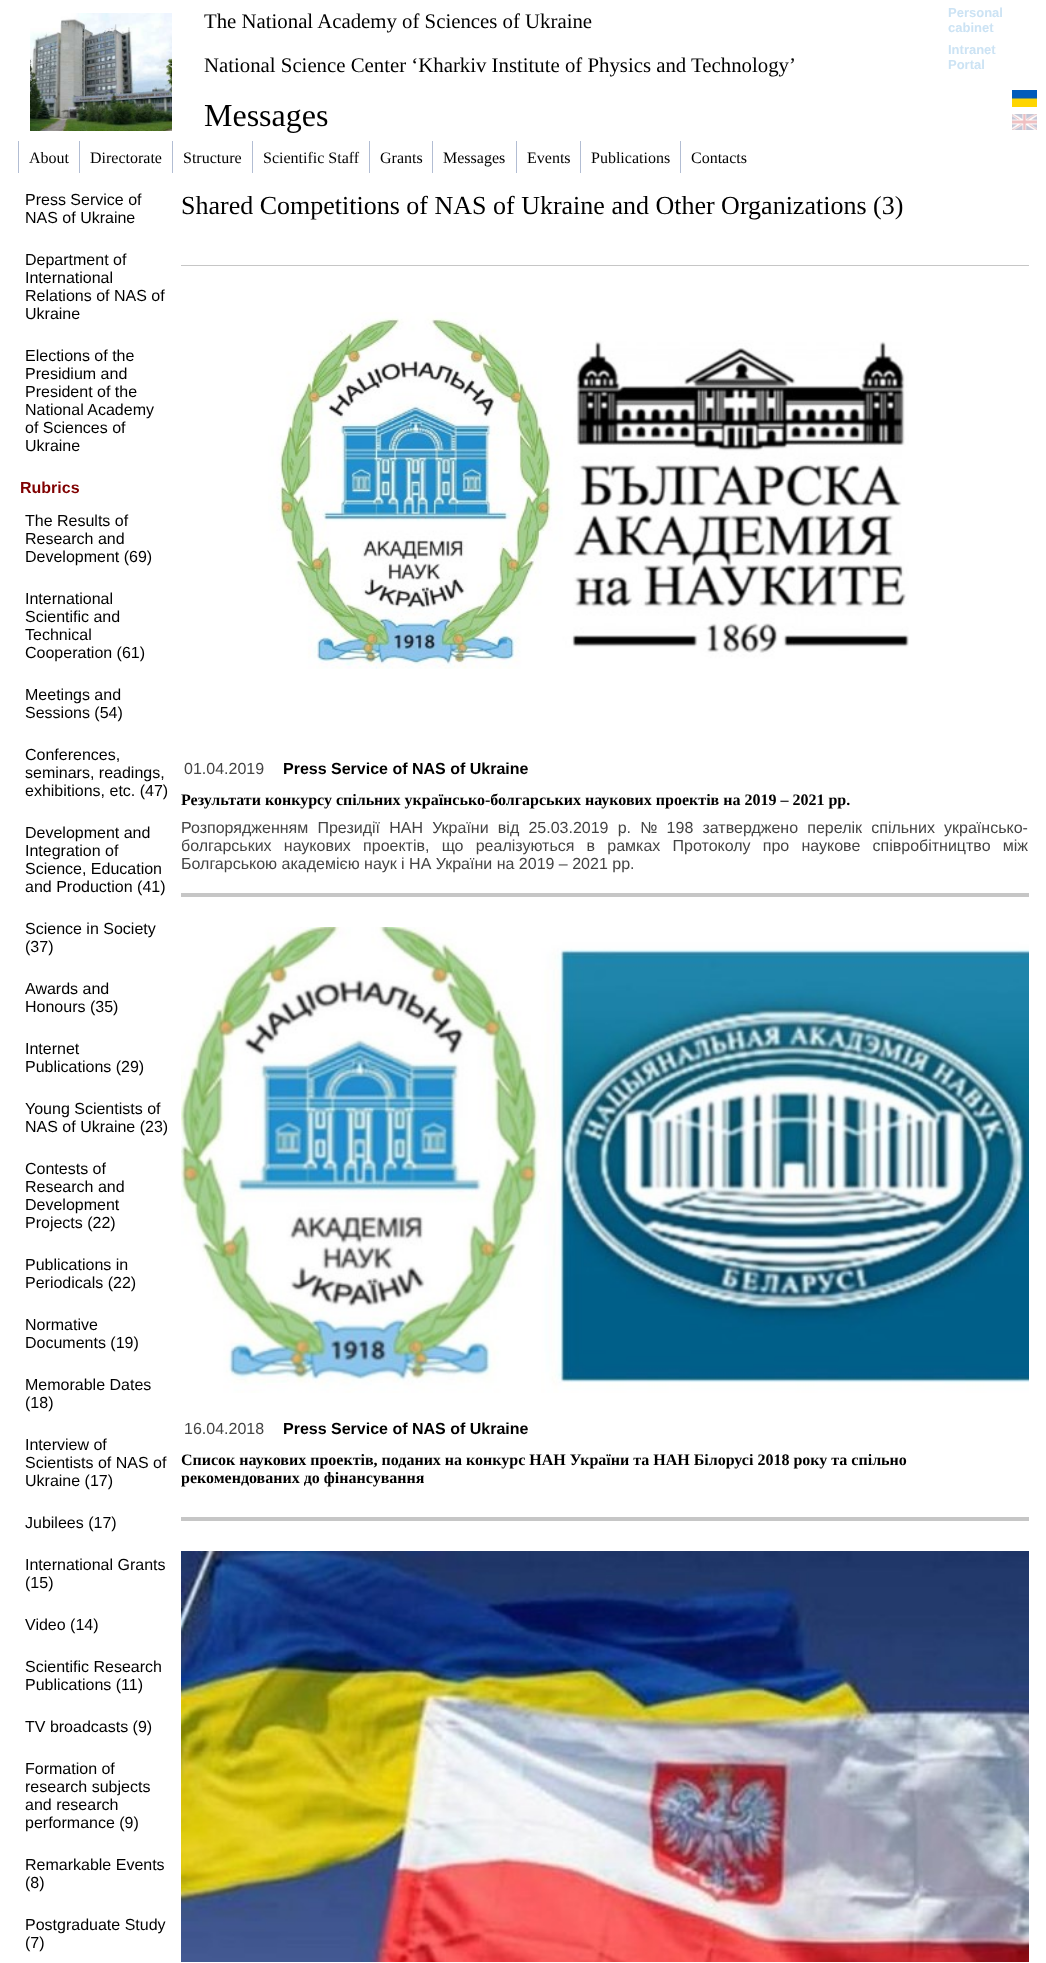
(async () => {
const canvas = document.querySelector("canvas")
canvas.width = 1046
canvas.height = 1963
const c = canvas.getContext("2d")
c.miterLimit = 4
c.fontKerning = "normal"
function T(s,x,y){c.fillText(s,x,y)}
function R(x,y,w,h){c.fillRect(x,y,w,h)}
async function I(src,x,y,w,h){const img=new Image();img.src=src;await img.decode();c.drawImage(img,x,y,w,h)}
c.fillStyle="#fff"
R(0,0,1046,1963)
await I("1.png",30,13,142,118)
c.font="20.8px Liberation Serif"
c.fillStyle="#000"
T("The National Academy of Sciences of Ukraine",204,28)
c.font="bold 13px Liberation Sans"
c.fillStyle="#cce3f4"
T("Personal",948,17)
T("cabinet",948,32)
T("Intranet",948,54)
T("Portal",948,69)
c.font="20.8px Liberation Serif"
c.fillStyle="#000"
T("National Science Center ‘Kharkiv Institute of Physics and Technology’",204,72)
await I("2.png",1012,90,25,17)
await I("3.png",1012,114,25,16)
c.font="32px Liberation Serif"
T("Messages",204,126)
c.fillStyle="#b2bdd3"
R(18,141,1,32)
c.font="16px Liberation Serif"
c.fillStyle="#000"
T("About",29,163)
c.fillStyle="#b2bdd3"
R(79,141,1,32)
c.fillStyle="#000"
T("Directorate",90,163)
c.fillStyle="#b2bdd3"
R(172,141,1,32)
c.fillStyle="#000"
T("Structure",183,163)
c.fillStyle="#b2bdd3"
R(252,141,1,32)
c.fillStyle="#000"
T("Scientific Staff",263,163)
c.fillStyle="#b2bdd3"
R(369,141,1,32)
c.fillStyle="#000"
T("Grants",380,163)
c.fillStyle="#b2bdd3"
R(432,141,1,32)
c.fillStyle="#000"
T("Messages",443,163)
c.fillStyle="#b2bdd3"
R(516,141,1,32)
c.fillStyle="#000"
T("Events",527,163)
c.fillStyle="#b2bdd3"
R(580,141,1,32)
c.fillStyle="#000"
T("Publications",591,163)
c.fillStyle="#b2bdd3"
R(680,141,1,32)
c.fillStyle="#000"
T("Contacts",691,163)
c.font="16px Liberation Sans"
T("Press Service of",25,205)
T("NAS of Ukraine",25,223)
T("Department of",25,265)
T("International",25,283)
T("Relations of NAS of",25,301)
T("Ukraine",25,319)
T("Elections of the",25,361)
T("Presidium and",25,379)
T("President of the",25,397)
T("National Academy",25,415)
T("of Sciences of",25,433)
T("Ukraine",25,451)
c.font="bold 16px Liberation Sans"
c.fillStyle="#800000"
T("Rubrics",20,493)
c.font="16px Liberation Sans"
c.fillStyle="#000"
T("The Results of",25,526)
T("Research and",25,544)
T("Development (69)",25,562)
T("International",25,604)
T("Scientific and",25,622)
T("Technical",25,640)
T("Cooperation (61)",25,658)
T("Meetings and",25,700)
T("Sessions (54)",25,718)
T("Conferences,",25,760)
T("seminars, readings,",25,778)
T("exhibitions, etc. (47)",25,796)
T("Development and",25,838)
T("Integration of",25,856)
T("Science, Education",25,874)
T("and Production (41)",25,892)
T("Science in Society",25,934)
T("(37)",25,952)
T("Awards and",25,994)
T("Honours (35)",25,1012)
T("Internet",25,1054)
T("Publications (29)",25,1072)
T("Young Scientists of",25,1114)
T("NAS of Ukraine (23)",25,1132)
T("Contests of",25,1174)
T("Research and",25,1192)
T("Development",25,1210)
T("Projects (22)",25,1228)
T("Publications in",25,1270)
T("Periodicals (22)",25,1288)
T("Normative",25,1330)
T("Documents (19)",25,1348)
T("Memorable Dates",25,1390)
T("(18)",25,1408)
T("Interview of",25,1450)
T("Scientists of NAS of",25,1468)
T("Ukraine (17)",25,1486)
T("Jubilees (17)",25,1528)
T("International Grants",25,1570)
T("(15)",25,1588)
T("Video (14)",25,1630)
T("Scientific Research",25,1672)
T("Publications (11)",25,1690)
T("TV broadcasts (9)",25,1732)
T("Formation of",25,1774)
T("research subjects",25,1792)
T("and research",25,1810)
T("performance (9)",25,1828)
T("Remarkable Events",25,1870)
T("(8)",25,1888)
T("Postgraduate Study",25,1930)
T("(7)",25,1948)
c.font="26px Liberation Serif"
T("Shared Competitions of NAS of Ukraine and Other Organizations (3)",181,214)
c.fillStyle="#c6c6c6"
R(181,265,848,1)
await I("4.png",268,312,641,357)
c.font="16px Liberation Sans"
c.fillStyle="#444"
T("01.04.2019",184,774)
c.font="bold 16px Liberation Sans"
c.fillStyle="#000"
T("Press Service of NAS of Ukraine",283,774)
c.font="bold 16px Liberation Serif"
T("Результати конкурсу спільних українсько-болгарських наукових проектів на 2019 – 2021 рр.",181,805)
c.wordSpacing="4.75px"
c.font="16px Liberation Sans"
c.fillStyle="#444"
T("Розпорядженням Президії НАН України від 25.03.2019 р. № 198 затверджено перелік спільних українсько-",181,833)
c.wordSpacing="7.75px"
T("болгарських наукових проектів, що реалізуються в рамках Протоколу про наукове співробітництво між",181,851)
c.wordSpacing="0px"
T("Болгарською академією наук і НА України на 2019 – 2021 рр.",181,869)
c.fillStyle="#c6c6c6"
R(181,893,848,4)
await I("5.png",181,927,848,466)
c.fillStyle="#444"
T("16.04.2018",184,1434)
c.font="bold 16px Liberation Sans"
c.fillStyle="#000"
T("Press Service of NAS of Ukraine",283,1434)
c.font="bold 16px Liberation Serif"
T("Список наукових проектів, поданих на конкурс НАН України та НАН Білорусі 2018 року та спільно",181,1465)
T("рекомендованих до фінансування",181,1483)
c.fillStyle="#c6c6c6"
R(181,1517,848,4)
await I("6.png",181,1551,848,411)
})()
